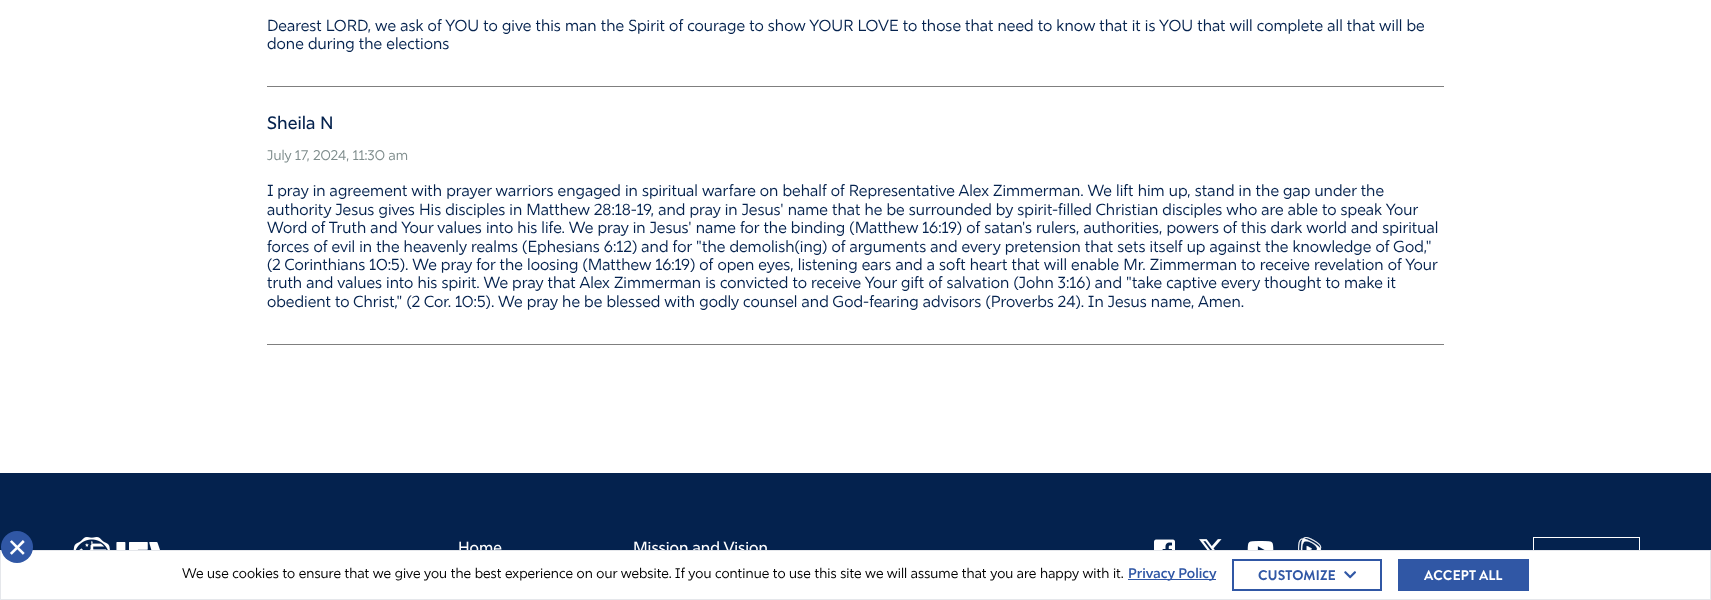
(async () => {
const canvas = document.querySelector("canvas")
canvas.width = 1711
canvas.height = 600
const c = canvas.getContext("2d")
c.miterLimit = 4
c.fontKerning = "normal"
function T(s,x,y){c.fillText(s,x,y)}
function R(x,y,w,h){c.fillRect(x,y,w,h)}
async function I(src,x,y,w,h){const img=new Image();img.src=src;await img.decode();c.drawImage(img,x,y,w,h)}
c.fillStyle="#fff"
R(0,0,1711,600)
c.fillStyle="#7f7f7f"
R(267,86,1177,1)
c.font="16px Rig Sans"
c.fillStyle="#04224e"
T("Dearest LORD, we ask of YOU to give this man the Spirit of courage to show YOUR LOVE to those that need to know that it is YOU that will complete all that will be",267,31)
T("done during the elections",267,49)
c.fillStyle="#7f7f7f"
R(267,344,1177,1)
c.font="500 18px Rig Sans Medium"
c.fillStyle="#04224e"
T("Sheila N",267,129)
c.font="14px Rig Sans"
c.fillStyle="#7e8c8c"
T("July 17, 2024, 11:30 am",267,160)
c.font="16px Rig Sans"
c.fillStyle="#04224e"
T("I pray in agreement with prayer warriors engaged in spiritual warfare on behalf of Representative Alex Zimmerman. We lift him up, stand in the gap under the",267,196)
T("authority Jesus gives His disciples in Matthew 28:18-19, and pray in Jesus' name that he be surrounded by spirit-filled Christian disciples who are able to speak Your",267,215)
T("Word of Truth and Your values into his life. We pray in Jesus' name for the binding (Matthew 16:19) of satan's rulers, authorities, powers of this dark world and spiritual",267,233)
T("forces of evil in the heavenly realms (Ephesians 6:12) and for \"the demolish(ing) of arguments and every pretension that sets itself up against the knowledge of God,\"",267,252)
T("(2 Corinthians 10:5). We pray for the loosing (Matthew 16:19) of open eyes, listening ears and a soft heart that will enable Mr. Zimmerman to receive revelation of Your",267,270)
T("truth and values into his spirit. We pray that Alex Zimmerman is convicted to receive Your gift of salvation (John 3:16) and \"take captive every thought to make it",267,288)
T("obedient to Christ,\" (2 Cor. 10:5). We pray he be blessed with godly counsel and God-fearing advisors (Proverbs 24). In Jesus name, Amen.",267,307)
R(0,473,1711,77)
c.font="500 16px Rig Sans Medium"
c.fillStyle="#fff"
T("Home",458,553)
T("Mission and Vision",633,553)
c.strokeStyle="#fff"
c.strokeRect(1533.5,537.5,106,37)
c.strokeStyle="#e5e7eb"
c.strokeRect(.5,550.5,1710,49)
c.fillStyle="#3057a5"
c.beginPath()
c.arc(17,547,16,0,7)
c.fill()
c.font="36px Rig Sans"
c.fillStyle="#fff"
T("×",7,560)
c.font="14px Rig Sans"
c.fillStyle="#000"
T("We use cookies to ensure that we give you the best experience on our website. If you continue to use this site we will assume that you are happy with it.",182,578)
c.fillStyle="#3057a5"
R(1128,579,88,1)
c.font="600 14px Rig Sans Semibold"
T("Privacy Policy",1128,578)
c.strokeStyle="#3057a5"
c.lineWidth=2
c.strokeRect(1233,560,148,30)
c.font="bold 14px Brandon Grotesque"
T("CUSTOMIZE",1258,580)
await I("1.png",1344,571,12,8)
R(1398,559,131,32)
c.fillStyle="#fff"
T("ACCEPT ALL",1424,580)
await I("2.png",73,537,87,13)
await I("3.png",1154,539,21,11)
await I("4.png",1199,539,23,11)
await I("5.png",1247,541,27,9)
await I("6.png",1298,537,24,13)
})()
